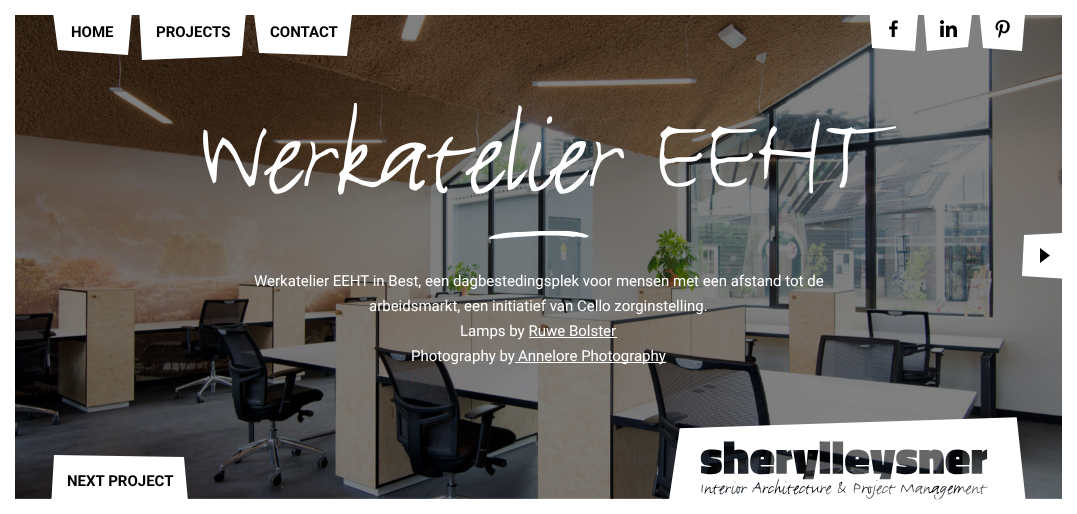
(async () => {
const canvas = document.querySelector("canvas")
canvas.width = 1077
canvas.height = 514
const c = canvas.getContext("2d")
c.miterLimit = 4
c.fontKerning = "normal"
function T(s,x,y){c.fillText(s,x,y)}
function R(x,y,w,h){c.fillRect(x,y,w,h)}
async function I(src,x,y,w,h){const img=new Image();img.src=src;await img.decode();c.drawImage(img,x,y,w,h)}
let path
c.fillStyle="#fff"
R(0,0,1077,514)
await I("1.png",15,15,1047,484)
path = new Path2D("M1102 231l-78 4l-2 41l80 5z")
c.fill(path)
c.fillStyle="#000"
path = new Path2D("M1040 263v-15l10 7.5z")
c.fill(path,"evenodd")
c.fillStyle="#fff"
path = new Path2D("M50-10h84l-6 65l-70-5z")
c.fill(path)
c.font="bold 15px Roboto"
c.fillStyle="#000"
T("HOME",71,37)
c.fillStyle="#fff"
path = new Path2D("M138-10h110l-6 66l-100 4z")
c.fill(path)
c.fillStyle="#000"
T("PROJECTS",156,37)
c.fillStyle="#fff"
path = new Path2D("M251-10h104l-8 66l-88-3z")
c.fill(path)
c.fillStyle="#000"
T("CONTACT",270,37)
c.fillStyle="#fff"
path = new Path2D("M868-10h52l-5 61l-43-3z")
c.fill(path)
await I("2.png",889,20,9,17)
c.save()
c.beginPath()
c.rect(923,0,50,51)
c.clip()
path = new Path2D("M922-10h53l-7 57l-41 4z")
c.fill(path)
c.restore()
await I("3.png",940,20,17,17)
path = new Path2D("M977-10h50l-5 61l-39-3z")
c.fill(path)
await I("4.png",995,20,15,19)
c.font="120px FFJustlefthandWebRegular"
T("Werkatelier EEHT",199,186)
c.save()
c.beginPath()
c.rect(489,231,100,8)
c.clip()
c.fillStyle="#fefefe"
path = new Path2D("M574 237c-30-4-60 1-85 2c2-5 16-6 26-7c21 0 58-5 74 4c-4 4-9-1-15 1")
c.fill(path,"evenodd")
c.restore()
c.font="15px Roboto"
T("Werkatelier EEHT in Best, een dagbestedingsplek voor mensen met een afstand tot de",254,286)
T("arbeidsmarkt, een initiatief van Cello zorginstelling.",369,311)
T("Lamps by Ruwe Bolster",460,336)
R(529,337,88,1)
T("Photography by",411,361)
R(515,362,151,1)
T("Annelore Photography",518,361)
path = new Path2D("M50 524h140l-6-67l-130-2z")
c.fill(path)
c.font="bold 15px Roboto"
c.fillStyle="#000"
T("NEXT PROJECT",67,486)
await I("5.png",669,417,357,83)
})()
